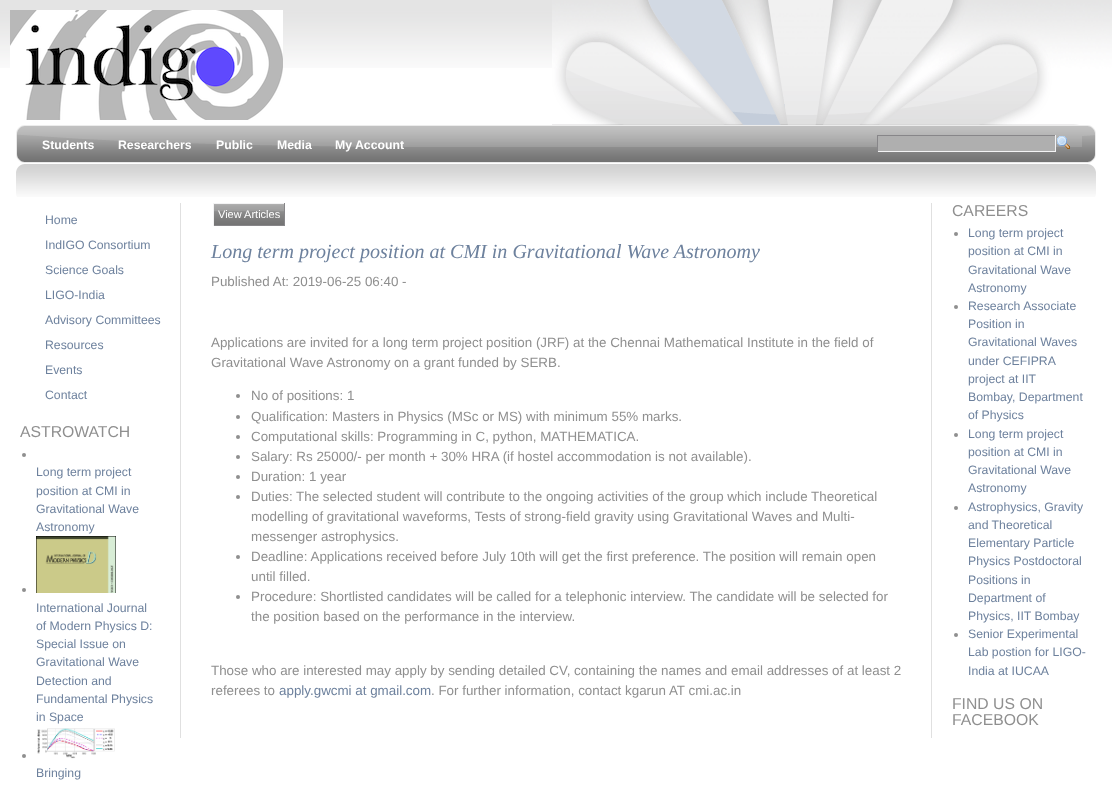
(async () => {
const canvas = document.querySelector("canvas")
canvas.width = 1112
canvas.height = 790
const c = canvas.getContext("2d")
c.miterLimit = 4
c.fontKerning = "normal"
function T(s,x,y){c.fillText(s,x,y)}
function R(x,y,w,h){c.fillRect(x,y,w,h)}
async function I(src,x,y,w,h){const img=new Image();img.src=src;await img.decode();c.drawImage(img,x,y,w,h)}
c.fillStyle="#fff"
R(0,0,1112,790)
await I("1.png",0,0,552,68)
await I("2.png",552,0,560,125)
await I("3.png",10,10,273,110)
await I("4.png",1082,125,14,72)
await I("5.png",0,125,1082,72)
c.font="bold 12.25px Liberation Sans"
T("Students",42,149)
T("Researchers",118,149)
T("Public",216,149)
T("Media",277,149)
T("My Account",335,149)
c.fillStyle="#afafaf"
R(878,136,177,15)
c.fillStyle="#878689"
R(877,135,179,1)
c.fillStyle="#f3f3f4"
R(1055,135,1,17)
R(877,151,179,1)
c.fillStyle="#878689"
R(877,135,1,17)
await I("6.png",1057,136,13,13)
c.font="12.25px Liberation Sans"
c.fillStyle="#6d819d"
T("Home",45,224)
T("IndIGO Consortium",45,249)
T("Science Goals",45,274)
T("LIGO-India",45,299)
T("Advisory Committees",45,324)
T("Resources",45,349)
T("Events",45,374)
T("Contact",45,399)
c.font="15.75px Liberation Sans"
c.fillStyle="#8f8f8f"
T("ASTROWATCH",20,437)
c.beginPath()
c.arc(24,455,2,0,7)
c.fill()
c.font="12.25px Liberation Sans"
c.fillStyle="#6d819d"
T("Long term project",36,476)
T("position at CMI in",36,495)
T("Gravitational Wave",36,513)
T("Astronomy",36,531)
c.fillStyle="#8f8f8f"
c.beginPath()
c.arc(24,590,2,0,7)
c.fill()
await I("7.png",36,536,80,57)
c.fillStyle="#6d819d"
T("International Journal",36,612)
T("of Modern Physics D:",36,630)
T("Special Issue on",36,648)
T("Gravitational Wave",36,666)
T("Detection and",36,685)
T("Fundamental Physics",36,703)
T("in Space",36,721)
c.fillStyle="#8f8f8f"
c.beginPath()
c.arc(24,756,2,0,7)
c.fill()
await I("8.png",37,728,78,31)
c.fillStyle="#6d819d"
T("Bringing",36,777)
c.fillStyle="#e0e0e0"
R(931,203,1,535)
R(180,203,1,535)
c.fillStyle="#afafaf"
R(214,204,70,1)
await I("9.png",214,205,70,20)
c.fillStyle="#f3f3f4"
R(213,203,72,1)
c.fillStyle="#878689"
R(284,203,1,23)
R(213,225,72,1)
c.fillStyle="#f3f3f4"
R(213,203,1,23)
c.font="11px Liberation Sans"
c.fillStyle="#fff"
T("View Articles",218,218)
c.font="italic 20.05px Liberation Serif"
c.fillStyle="#6d819d"
T("Long term project position at CMI in Gravitational Wave Astronomy",211,258)
c.font="13.38px Liberation Sans"
c.fillStyle="#8f8f8f"
T("Published At: 2019-06-25 06:40 -",211,286)
T("Applications are invited for a long term project position (JRF) at the Chennai Mathematical Institute in the field of",211,347)
T("Gravitational Wave Astronomy on a grant funded by SERB.",211,367)
c.beginPath()
c.arc(238,396,2,0,7)
c.fill()
T("No of positions: 1",251,400)
c.beginPath()
c.arc(238,417,2,0,7)
c.fill()
T("Qualification: Masters in Physics (MSc or MS) with minimum 55% marks.",251,421)
c.beginPath()
c.arc(238,437,2,0,7)
c.fill()
T("Computational skills: Programming in C, python, MATHEMATICA.",251,441)
c.beginPath()
c.arc(238,457,2,0,7)
c.fill()
T("Salary: Rs 25000/- per month + 30% HRA (if hostel accommodation is not available).",251,461)
c.beginPath()
c.arc(238,477,2,0,7)
c.fill()
T("Duration: 1 year",251,481)
c.beginPath()
c.arc(238,497,2,0,7)
c.fill()
T("Duties: The selected student will contribute to the ongoing activities of the group which include Theoretical",251,501)
T("modelling of gravitational waveforms, Tests of strong-field gravity using Gravitational Waves and Multi-",251,521)
T("messenger astrophysics.",251,541)
c.beginPath()
c.arc(238,557,2,0,7)
c.fill()
T("Deadline: Applications received before July 10th will get the first preference. The position will remain open",251,561)
T("until filled.",251,581)
c.beginPath()
c.arc(238,597,2,0,7)
c.fill()
T("Procedure: Shortlisted candidates will be called for a telephonic interview. The candidate will be selected for",251,601)
T("the position based on the performance in the interview.",251,621)
T("Those who are interested may apply by sending detailed CV, containing the names and email addresses of at least 2",211,675)
T("referees to",211,695)
c.fillStyle="#6d819d"
T("apply.gwcmi at gmail.com",279,695)
c.fillStyle="#8f8f8f"
T(". For further information, contact kgarun AT cmi.ac.in",431,695)
c.font="15.75px Liberation Sans"
T("CAREERS",952,216)
c.beginPath()
c.arc(956,234,2,0,7)
c.fill()
c.font="12.25px Liberation Sans"
c.fillStyle="#6d819d"
T("Long term project",968,237)
T("position at CMI in",968,255)
T("Gravitational Wave",968,274)
T("Astronomy",968,292)
c.fillStyle="#8f8f8f"
c.beginPath()
c.arc(956,307,2,0,7)
c.fill()
c.fillStyle="#6d819d"
T("Research Associate",968,310)
T("Position in",968,328)
T("Gravitational Waves",968,346)
T("under CEFIPRA",968,365)
T("project at IIT",968,383)
T("Bombay, Department",968,401)
T("of Physics",968,419)
c.fillStyle="#8f8f8f"
c.beginPath()
c.arc(956,435,2,0,7)
c.fill()
c.fillStyle="#6d819d"
T("Long term project",968,438)
T("position at CMI in",968,456)
T("Gravitational Wave",968,474)
T("Astronomy",968,492)
c.fillStyle="#8f8f8f"
c.beginPath()
c.arc(956,508,2,0,7)
c.fill()
c.fillStyle="#6d819d"
T("Astrophysics, Gravity",968,511)
T("and Theoretical",968,529)
T("Elementary Particle",968,547)
T("Physics Postdoctoral",968,565)
T("Positions in",968,584)
T("Department of",968,602)
T("Physics, IIT Bombay",968,620)
c.fillStyle="#8f8f8f"
c.beginPath()
c.arc(956,635,2,0,7)
c.fill()
c.fillStyle="#6d819d"
T("Senior Experimental",968,638)
T("Lab postion for LIGO-",968,656)
T("India at IUCAA",968,675)
c.font="15.75px Liberation Sans"
c.fillStyle="#8f8f8f"
T("FIND US ON",952,709)
T("FACEBOOK",952,725)
})()
